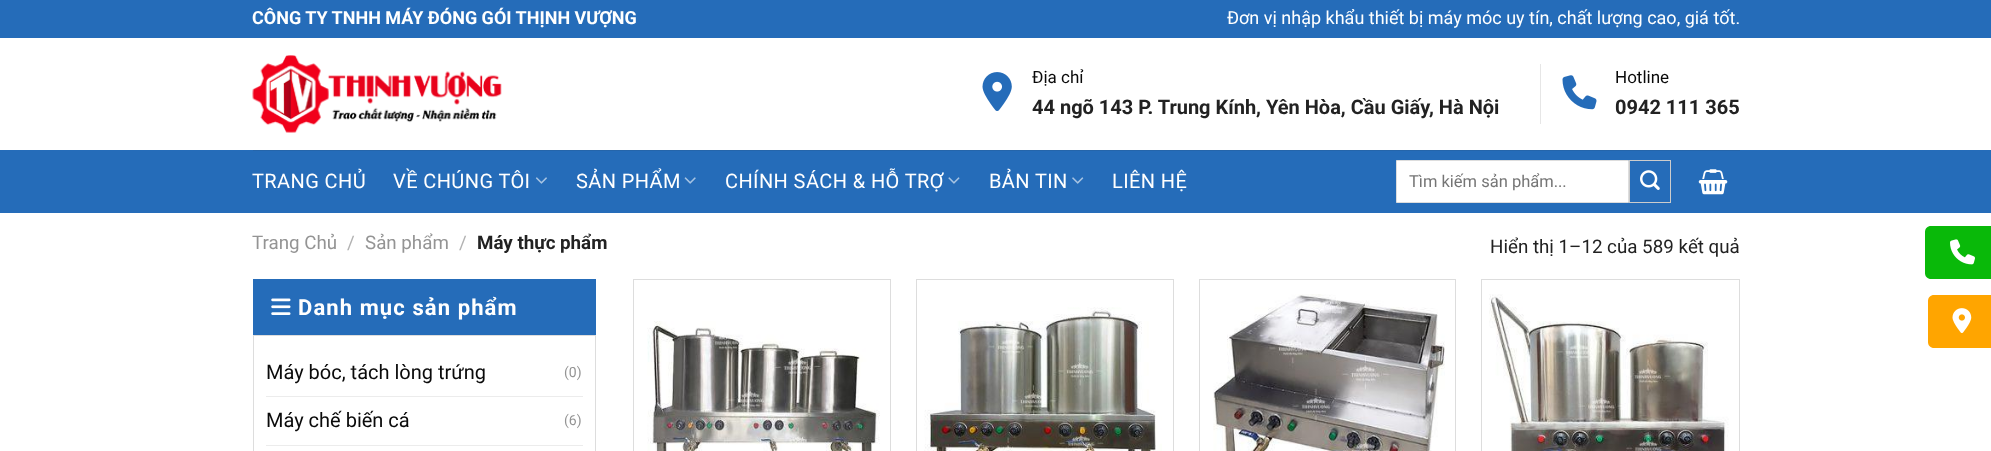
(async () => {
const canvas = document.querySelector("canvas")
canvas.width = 1991
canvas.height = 451
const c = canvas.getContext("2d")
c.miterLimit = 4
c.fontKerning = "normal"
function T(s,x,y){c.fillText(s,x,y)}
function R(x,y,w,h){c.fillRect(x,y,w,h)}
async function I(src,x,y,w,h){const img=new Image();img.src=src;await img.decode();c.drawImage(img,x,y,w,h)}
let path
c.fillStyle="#fff"
R(0,0,1991,451)
c.fillStyle="#256cb9"
R(0,0,1991,38)
c.font="bold 18px Roboto"
c.fillStyle="#fff"
T("CÔNG TY TNHH MÁY ĐÓNG GÓI THỊNH VƯỢNG",252,24)
c.font="18px Roboto"
T("Đơn vị nhập khẩu thiết bị máy móc uy tín, chất lượng cao, giá tốt.",1227,24)
await I("1.png",252,55,250,78)
await I("2.png",982,72,30,39)
c.font="17px Roboto"
c.fillStyle="#0a0a0a"
T("Địa chỉ",1032,83)
c.font="bold 20px Roboto"
c.fillStyle="#222"
T("44 ngõ 143 P. Trung Kính, Yên Hòa, Cầu Giấy, Hà Nội",1032,114)
c.fillStyle="#e6e6e6"
R(1540,64,1,60)
await I("3.png",1562,75,35,35)
c.font="17px Roboto"
c.fillStyle="#0a0a0a"
T("Hotline",1615,83)
c.font="bold 20px Roboto"
c.fillStyle="#222"
T("0942 111 365",1615,114)
c.fillStyle="#256cb9"
R(0,150,1991,63)
c.fillStyle="#2565aa"
R(253,150,1487,1)
c.letterSpacing="0.4px"
c.font="20px Roboto"
c.fillStyle="#fff"
T("TRANG CHỦ",252,188)
T("VỀ CHÚNG TÔI",393,188)
await I("4.png",535,177,12,7)
T("SẢN PHẨM",576,188)
await I("5.png",684,177,12,7)
T("CHÍNH SÁCH & HỖ TRỢ",725,188)
await I("6.png",948,177,12,7)
T("BẢN TIN",989,188)
await I("7.png",1072,177,12,7)
T("LIÊN HỆ",1112,188)
c.beginPath()
c.rect(1396.5,160.5,232,42)
c.fill()
c.strokeStyle="#ddd"
c.stroke()
c.letterSpacing="0px"
c.font="16.5px Roboto"
c.fillStyle="#757575"
T("Tìm kiếm sản phẩm...",1409,187)
c.strokeStyle="#ccc"
c.strokeRect(1629.5,160.5,41,42)
await I("8.png",1640,170,20,20)
await I("9.png",1698,169,30,26)
c.font="18.75px Roboto"
c.fillStyle="#949494"
T("Trang Chủ",252,249)
c.fillStyle="#b2b2b2"
T("/",347,249)
c.fillStyle="#949494"
T("Sản phẩm",365,249)
c.fillStyle="#b2b2b2"
T("/",459,249)
c.font="bold 18.75px Roboto"
c.fillStyle="#222"
T("Máy thực phẩm",477,249)
c.font="18.75px Roboto"
T("Hiển thị 1–12 của 589 kết quả",1490,253)
c.fillStyle="#256cb9"
R(253,279,343,56)
await I("10.png",271,298,20,17)
c.letterSpacing="1.1px"
c.font="bold 22px Roboto"
c.fillStyle="#fff"
T("Danh mục sản phẩm",298,315)
c.strokeStyle="#ddd"
c.strokeRect(253.5,335.5,342,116)
c.letterSpacing="0px"
c.font="20px Roboto"
c.fillStyle="#0a0a0a"
T("Máy bóc, tách lòng trứng",266,379)
c.font="14px Roboto"
c.fillStyle="#949494"
T("(0)",564,377)
c.fillStyle="#ececec"
R(266,396,317,1)
c.font="20px Roboto"
c.fillStyle="#0a0a0a"
T("Máy chế biến cá",266,427)
c.font="14px Roboto"
c.fillStyle="#949494"
T("(6)",564,425)
c.fillStyle="#ececec"
R(266,445,317,1)
c.strokeRect(633.5,279.5,257,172)
await I("11.png",647,321,233,130)
c.strokeRect(916.5,279.5,257,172)
await I("12.png",924,307,238,144)
c.strokeRect(1199.5,279.5,256,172)
await I("13.png",1213,294,232,157)
c.strokeRect(1481.5,279.5,258,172)
await I("14.png",1489,294,240,157)
c.fillStyle="#09b909"
path = new Path2D("M1931 226h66v53h-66c-3.5 0-6-2.5-6-6v-41c0-3.5 2.5-6 6-6z")
c.fill(path)
await I("15.png",1950,239,25,26)
c.fillStyle="#ffa500"
path = new Path2D("M1934 295h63v53h-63c-3.5 0-6-2.5-6-6v-41c0-3.5 2.5-6 6-6z")
c.fill(path)
await I("16.png",1952,308,20,25)
})()
